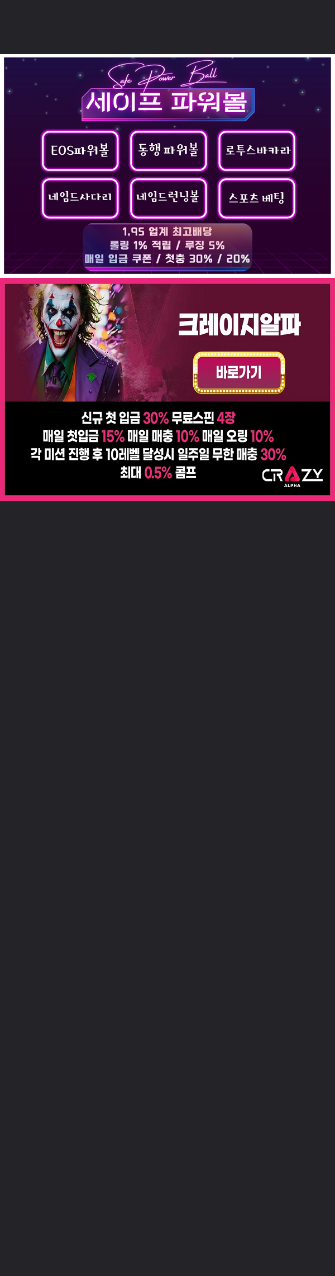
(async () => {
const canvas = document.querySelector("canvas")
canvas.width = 335
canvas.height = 1276
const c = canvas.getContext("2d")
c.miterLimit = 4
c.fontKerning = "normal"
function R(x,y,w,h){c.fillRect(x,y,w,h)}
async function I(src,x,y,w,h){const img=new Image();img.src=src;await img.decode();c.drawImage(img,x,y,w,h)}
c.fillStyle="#242428"
R(0,0,335,1276)
await I("1.png",0,54,335,224)
await I("2.png",0,278,335,223)
})()
